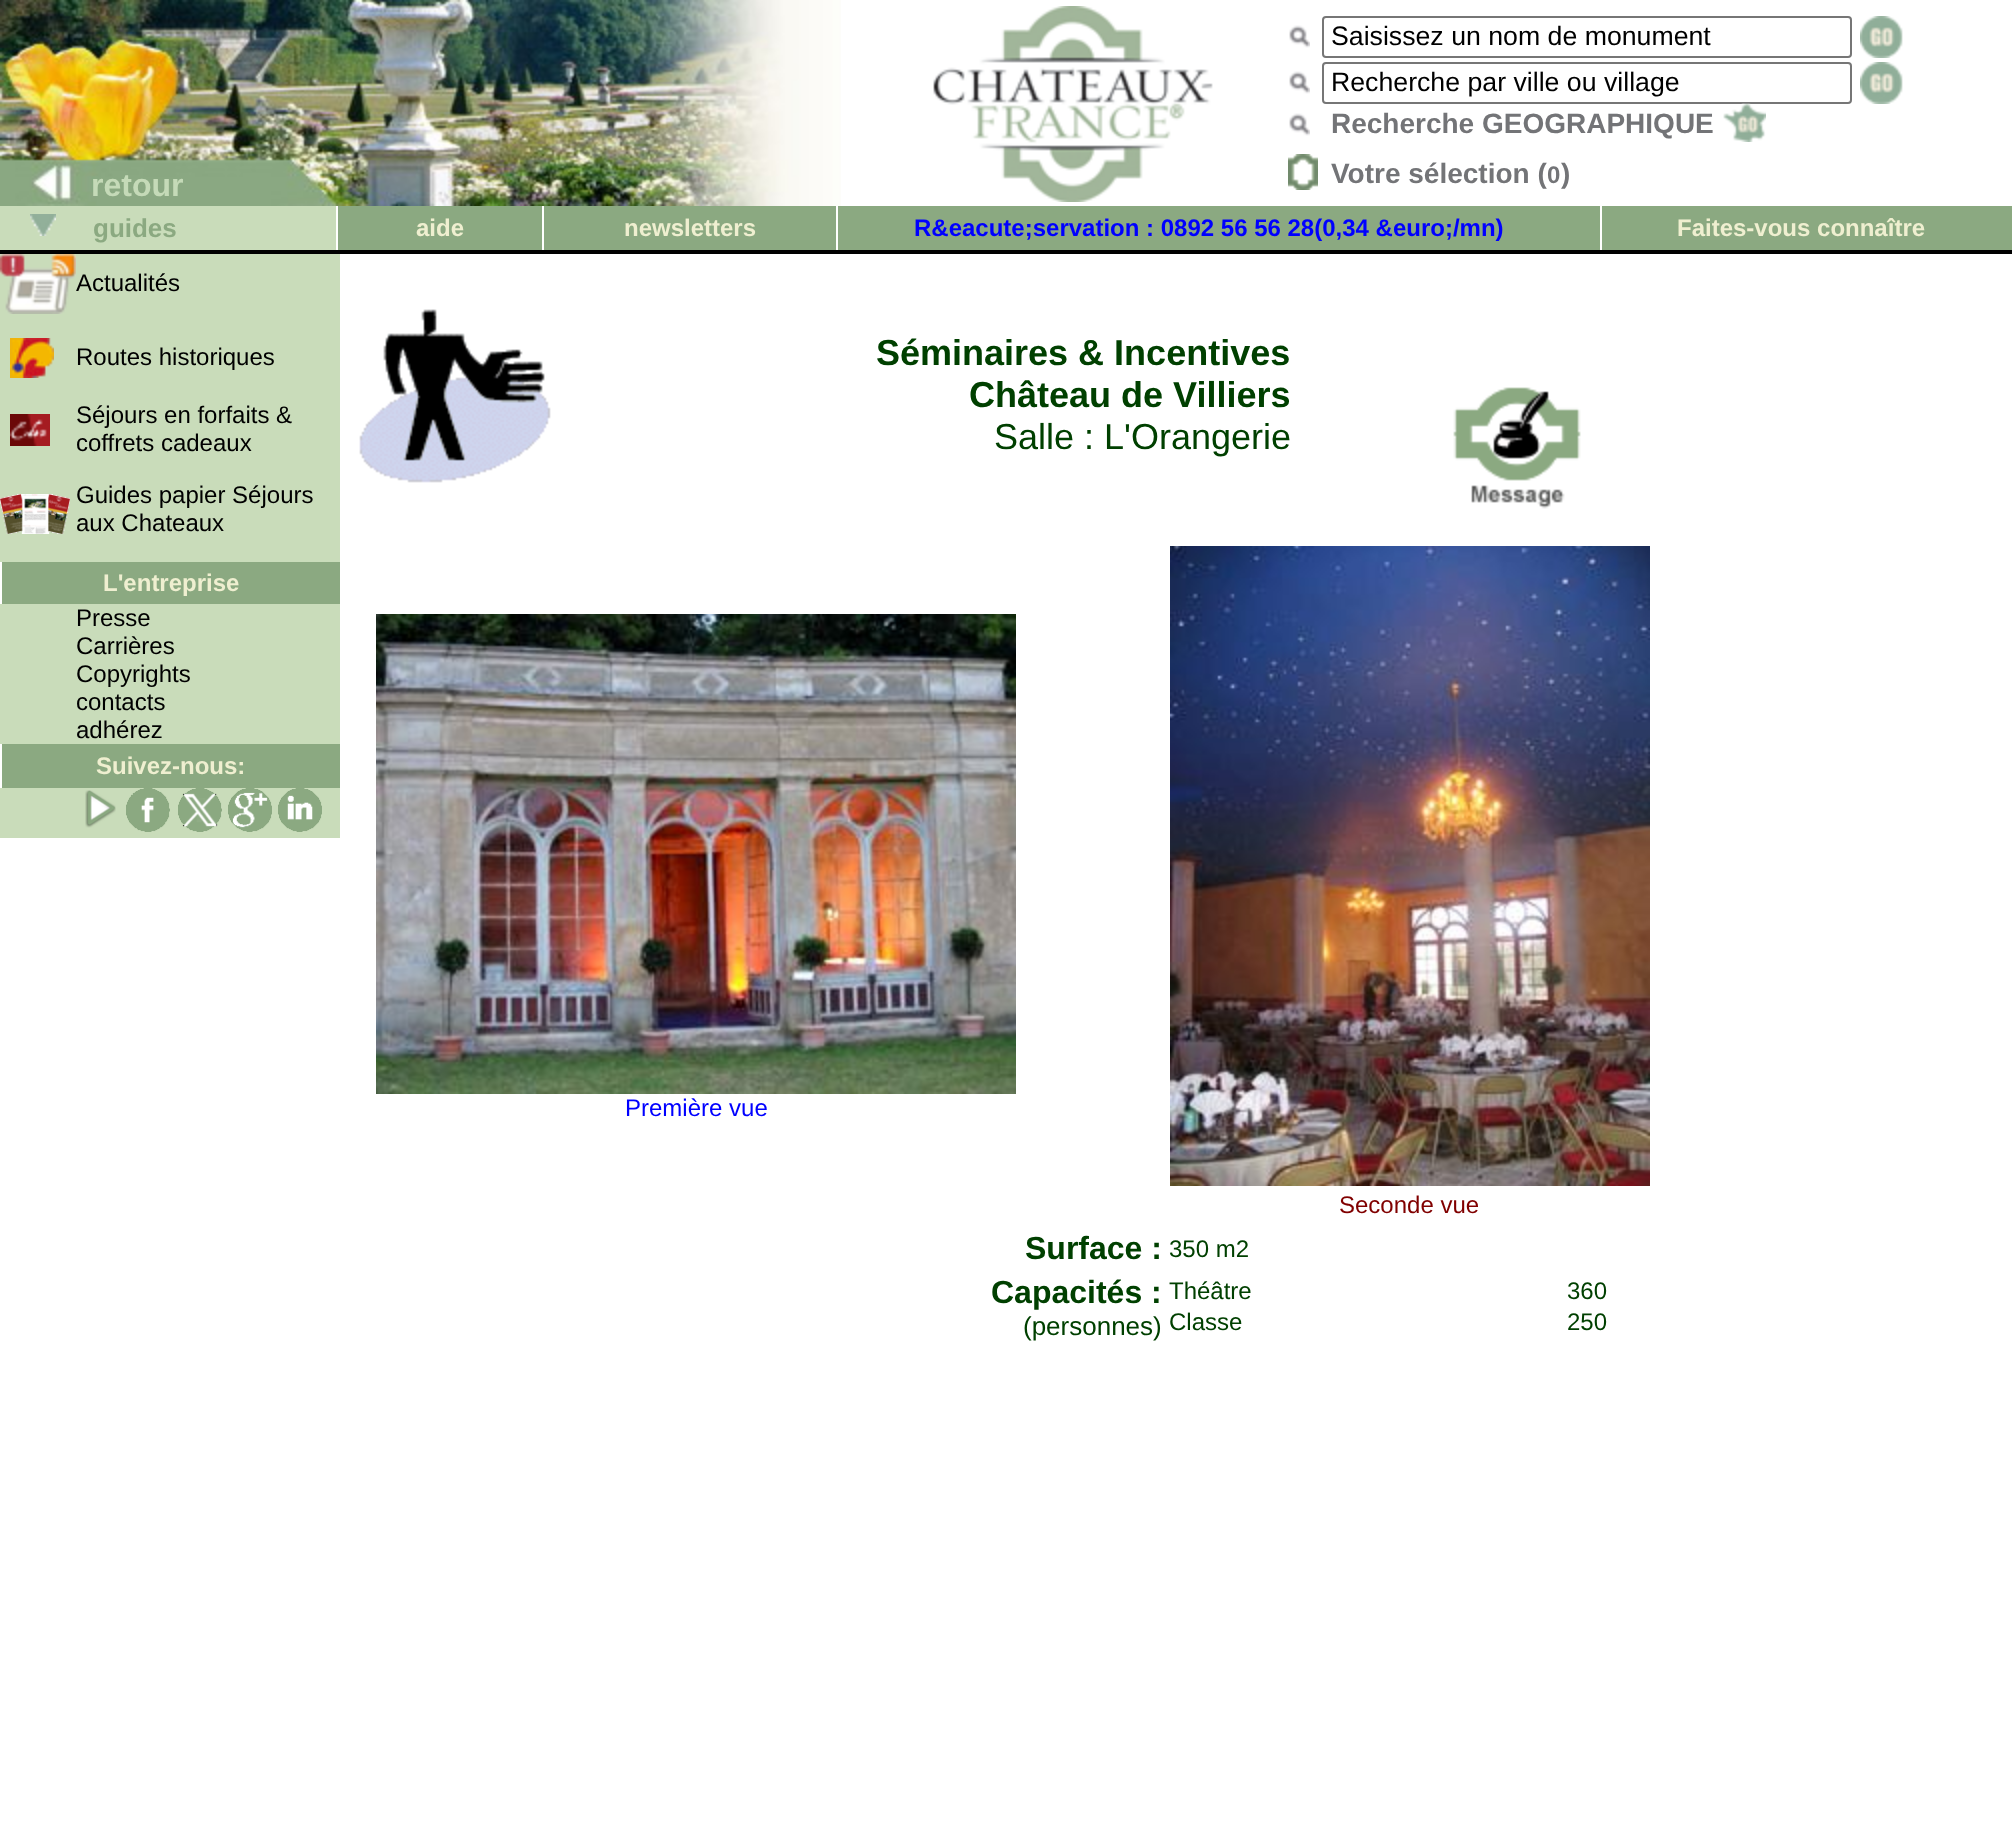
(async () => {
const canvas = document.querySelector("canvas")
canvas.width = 2012
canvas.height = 1832
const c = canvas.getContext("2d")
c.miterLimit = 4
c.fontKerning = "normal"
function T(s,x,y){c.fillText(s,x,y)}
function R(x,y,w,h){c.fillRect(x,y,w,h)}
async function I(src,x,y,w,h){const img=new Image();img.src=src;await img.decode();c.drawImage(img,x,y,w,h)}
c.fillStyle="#fff"
R(0,0,2012,1832)
await I("1.png",0,0,841,206)
c.font="bold 32px Liberation Sans"
c.fillStyle="#c5dab8"
T("retour",91,196)
await I("2.png",933,6,280,196)
await I("3.png",1289,25,21,23)
c.beginPath()
c.roundRect(1323,17,528,40,3)
c.strokeStyle="#767676"
c.lineWidth=2
c.stroke()
c.font="26.7px Liberation Sans"
c.fillStyle="#000"
T("Saisissez un nom de monument",1331,45)
await I("4.png",1860,16,43,42)
await I("3.png",1289,71,21,23)
c.beginPath()
c.roundRect(1323,63,528,40,3)
c.stroke()
T("Recherche par ville ou village",1331,91)
await I("4.png",1860,62,43,42)
await I("3.png",1289,113,21,23)
c.font="bold 28px Liberation Sans"
c.fillStyle="#737477"
T("Recherche GEOGRAPHIQUE",1331,133)
await I("5.png",1723,103,43,39)
await I("6.png",1288,154,30,36)
T("Votre sélection (",1331,183)
c.font="bold 24px Liberation Sans"
T("0",1547,183)
c.font="bold 28px Liberation Sans"
T(")",1561,183)
c.fillStyle="#c9dcba"
R(0,206,336,44)
await I("7.png",30,214,26,22)
c.font="bold 26px Liberation Sans"
c.fillStyle="#8ba981"
T("guides",93,237)
R(338,206,204,44)
c.font="bold 24px Liberation Sans"
c.fillStyle="#efefd0"
T("aide",416,236)
c.fillStyle="#8ba981"
R(544,206,292,44)
c.fillStyle="#efefd0"
T("newsletters",624,236)
c.fillStyle="#8ba981"
R(838,206,762,44)
c.fillStyle="#00f"
T("R&eacute;servation : 0892 56 56 28(0,34 &euro;/mn)",914,236)
c.fillStyle="#8ba981"
R(1602,206,410,44)
c.fillStyle="#efefd0"
T("Faites-vous connaître",1677,236)
c.fillStyle="#000"
R(0,250,2012,4)
c.fillStyle="#c9dcba"
R(0,254,340,584)
await I("8.png",0,254,76,60)
c.font="24px Liberation Sans"
c.fillStyle="#000"
T("Actualités",76,291)
await I("9.png",10,338,44,40)
T("Routes historiques",76,365)
await I("10.png",10,414,40,32)
T("Séjours en forfaits &",76,423)
T("coffrets cadeaux",76,451)
await I("11.png",0,494,70,40)
T("Guides papier Séjours",76,503)
T("aux Chateaux",76,531)
c.fillStyle="#8ba981"
R(2,562,338,42)
c.fillStyle="#fff"
R(0,562,2,42)
c.font="bold 24px Liberation Sans"
c.fillStyle="#efefd0"
T("L'entreprise",103,591)
c.font="24px Liberation Sans"
c.fillStyle="#000"
T("Presse",76,626)
T("Carrières",76,654)
T("Copyrights",76,682)
T("contacts",76,710)
T("adhérez",76,738)
c.fillStyle="#8ba981"
R(2,744,338,44)
c.fillStyle="#fff"
R(0,744,2,44)
c.font="bold 24px Liberation Sans"
c.fillStyle="#efefd0"
T("Suivez-nous:",96,774)
await I("12.png",85,790,31,38)
await I("13.png",126,788,44,44)
await I("14.png",178,788,44,44)
await I("15.png",228,788,44,44)
await I("16.png",278,788,44,44)
await I("17.png",359,309,192,174)
c.font="bold 36px Liberation Sans"
c.fillStyle="#004000"
T("Séminaires & Incentives",876,365)
T("Château de Villiers",969,407)
c.font="36px Liberation Sans"
T("Salle : L'Orangerie",994,449)
await I("18.png",1453,387,128,122)
await I("19.png",376,614,640,480)
c.font="24px Liberation Sans"
c.fillStyle="#00f"
T("Première vue",625,1116)
await I("20.png",1170,546,480,640)
c.fillStyle="#800000"
T("Seconde vue",1339,1213)
c.font="bold 32px Liberation Sans"
c.fillStyle="#004000"
T("Surface :",1025,1259)
c.font="24px Liberation Sans"
T("350 m2",1169,1257)
c.font="bold 32px Liberation Sans"
T("Capacités :",991,1303)
c.font="26px Liberation Sans"
T("(personnes)",1023,1335)
c.font="24px Liberation Sans"
T("Théâtre",1169,1299)
T("360",1567,1299)
T("Classe",1169,1330)
T("250",1567,1330)
})()
